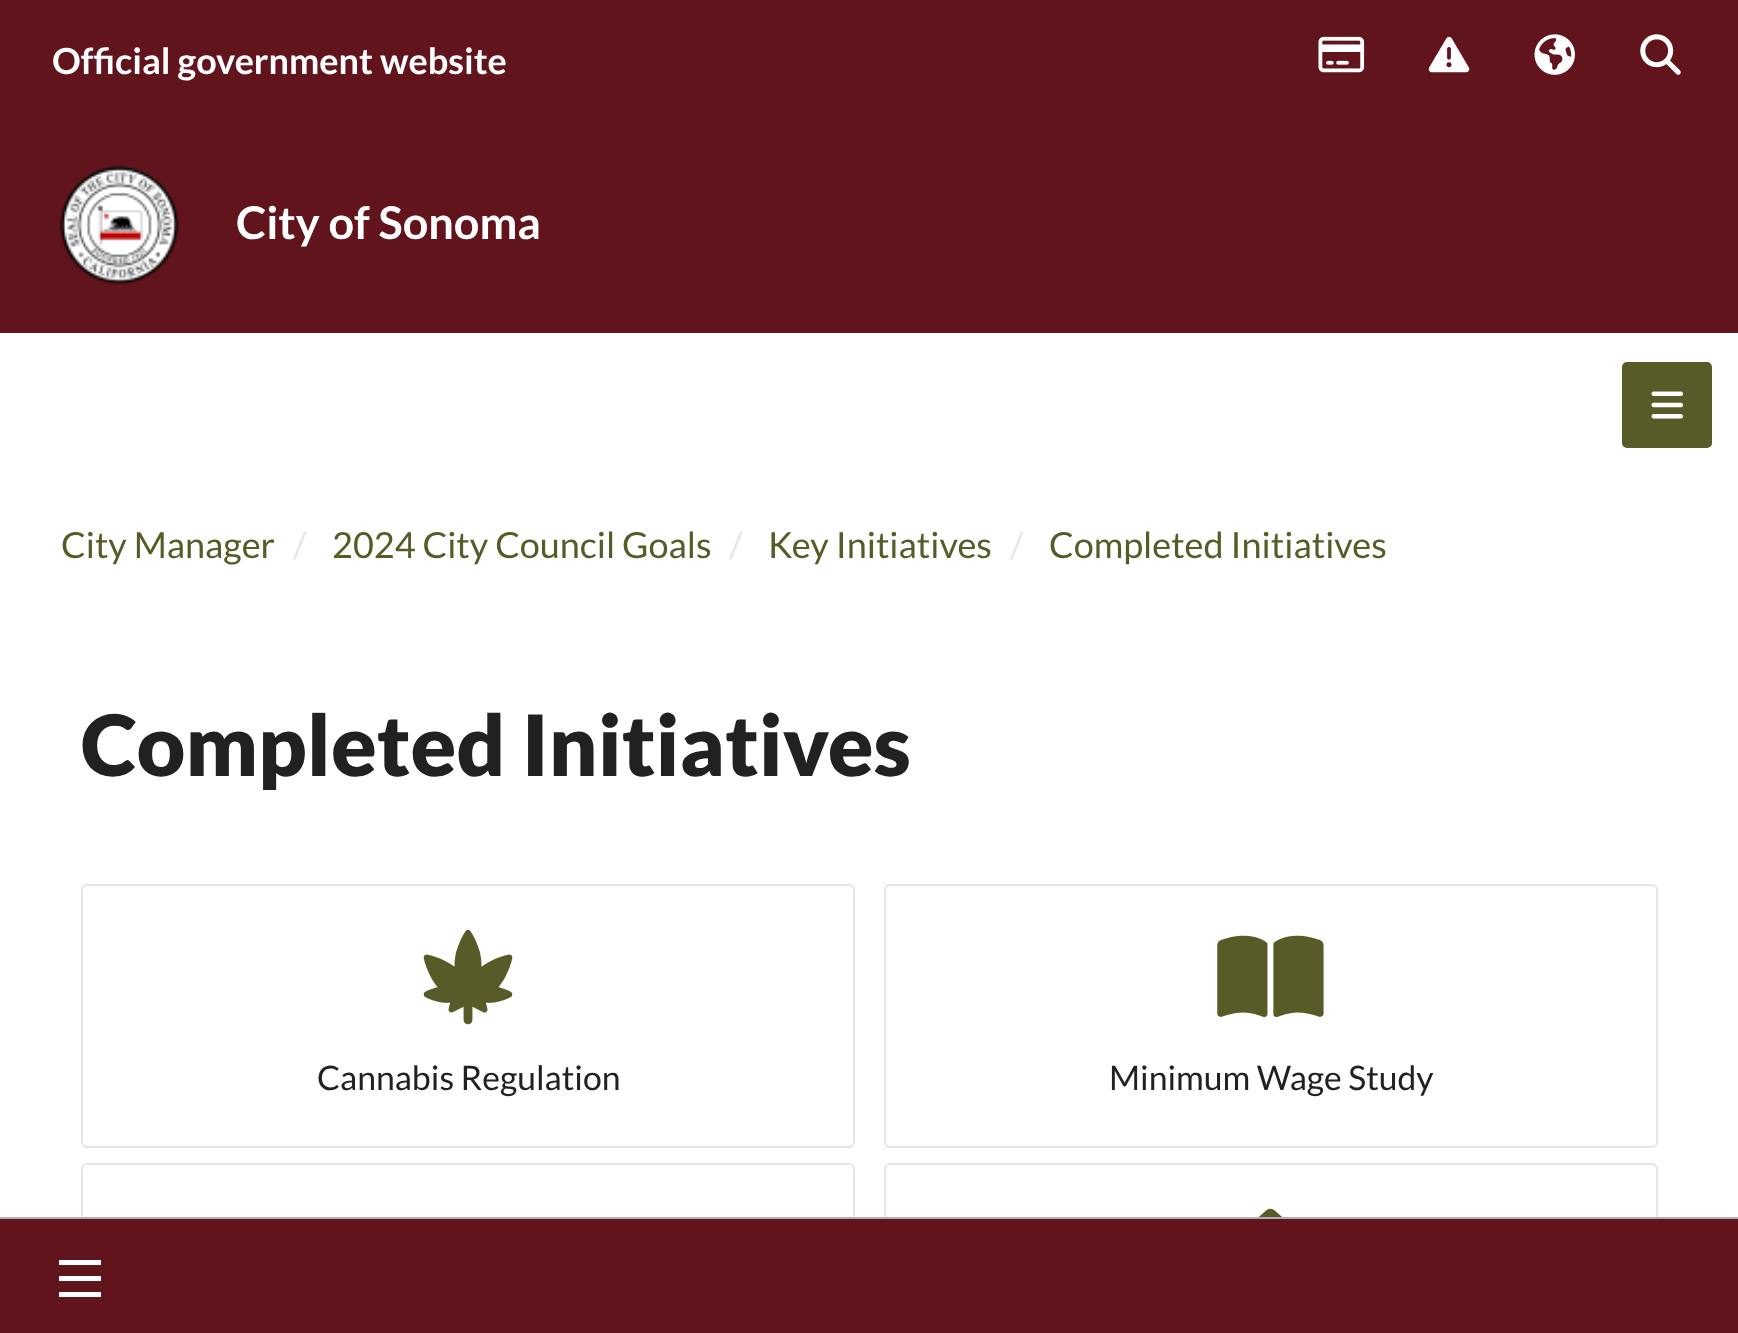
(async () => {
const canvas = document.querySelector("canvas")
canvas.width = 1738
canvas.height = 1333
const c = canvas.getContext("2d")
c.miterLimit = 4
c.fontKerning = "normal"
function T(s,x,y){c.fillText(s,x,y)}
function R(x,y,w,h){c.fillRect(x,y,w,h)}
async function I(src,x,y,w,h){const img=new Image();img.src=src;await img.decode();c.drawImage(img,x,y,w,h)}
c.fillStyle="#fff"
R(0,0,1738,1333)
c.fillStyle="#61141c"
R(0,0,1738,333)
c.font="bold 36px Lato"
c.fillStyle="#fff"
T("Official government website",52,74)
await I("1.png",1318,36,47,37)
await I("2.png",1428,36,42,37)
await I("3.png",1534,34,41,41)
await I("4.png",1640,34,41,41)
await I("5.png",59,165,120,120)
c.font="bold 45px Lato"
T("City of Sonoma",236,239)
c.beginPath()
c.roundRect(82,1164,772,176,5)
c.strokeStyle="#e5e5e5"
c.lineWidth=2
c.stroke()
c.beginPath()
c.roundRect(885,1164,772,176,5)
c.stroke()
c.fillStyle="#61141c"
R(0,1219,1738,114)
c.fillStyle="#aeb0b5"
R(0,1217,1738,2)
c.fillStyle="#fff"
R(59,1276,42,5)
R(59,1260,42,5)
R(59,1292,42,5)
c.fillStyle="#585b27"
c.beginPath()
c.roundRect(1623,363,88,84,4)
c.fill()
c.strokeStyle="#585b27"
c.stroke()
await I("6.png",1651,391,32,28)
c.font="36px Lato"
T("City Manager",61,558)
c.fillStyle="#e6e6e6"
T("/",293,558)
c.fillStyle="#585b27"
T("2024 City Council Goals",332,558)
c.fillStyle="#e6e6e6"
T("/",729,558)
c.fillStyle="#585b27"
T("Key Initiatives",768,558)
c.fillStyle="#e6e6e6"
T("/",1010,558)
c.fillStyle="#585b27"
T("Completed Initiatives",1049,558)
c.font="900 84.4px Lato"
c.fillStyle="#212121"
T("Completed Initiatives",81,776)
c.beginPath()
c.roundRect(82,885,772,262,5)
c.strokeStyle="#e5e5e5"
c.stroke()
await I("7.png",423,929,90,96)
c.font="33.75px Lato"
T("Cannabis Regulation",317,1090)
c.beginPath()
c.roundRect(885,885,772,262,5)
c.stroke()
await I("8.png",1217,935,107,82)
T("Minimum Wage Study",1109,1090)
await I("9.png",1258,1208,24,9)
})()
